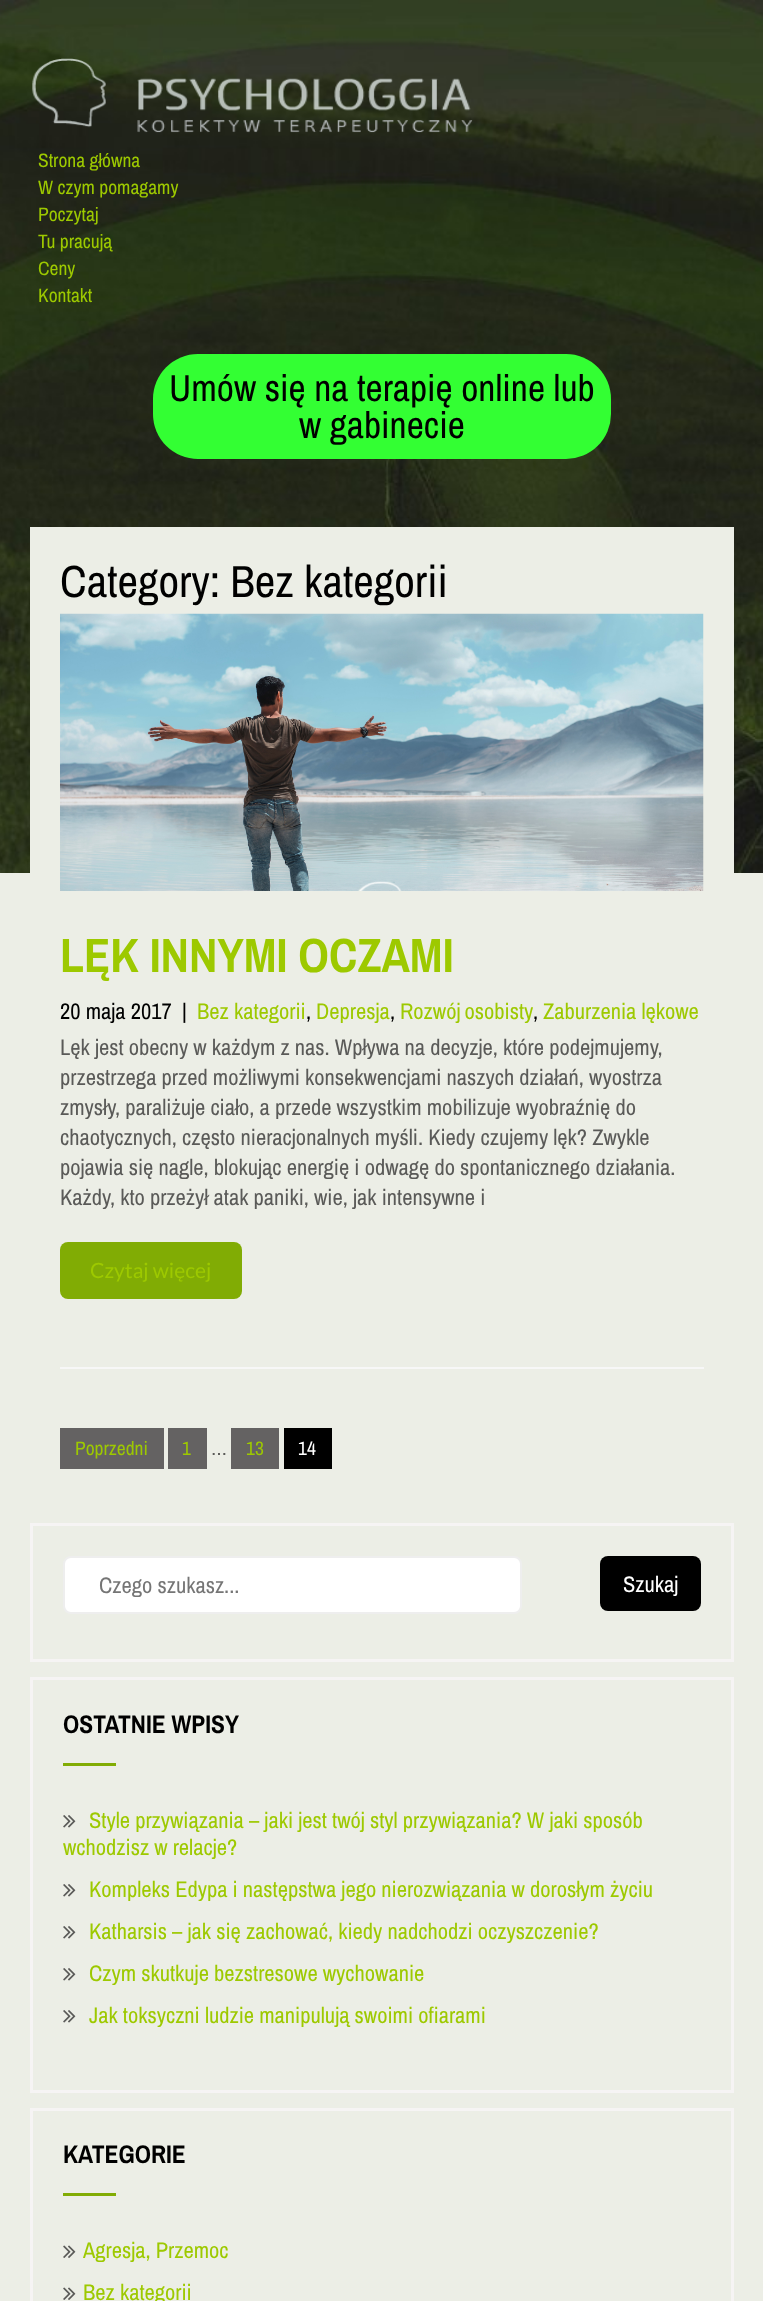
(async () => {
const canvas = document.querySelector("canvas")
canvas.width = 763
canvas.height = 2301
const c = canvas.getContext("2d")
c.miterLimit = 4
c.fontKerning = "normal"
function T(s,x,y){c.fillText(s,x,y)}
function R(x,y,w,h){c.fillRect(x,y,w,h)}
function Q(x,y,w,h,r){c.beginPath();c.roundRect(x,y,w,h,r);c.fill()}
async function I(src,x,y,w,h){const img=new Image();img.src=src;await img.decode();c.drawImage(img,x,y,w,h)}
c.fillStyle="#eceee6"
R(0,0,763,2301)
await I("1.png",0,0,763,873)
await I("2.png",32,58,441,75)
c.font="19.5px Archivo Narrow"
c.fillStyle="#9dc900"
T("Strona główna",38,167)
T("W czym pomagamy",38,194)
T("Poczytaj",38,221)
T("Tu pracują",38,248)
T("Ceny",38,275)
T("Kontakt",38,302)
c.fillStyle="#3f3"
Q(153,354,458,105,45)
c.font="37.5px Archivo Narrow"
c.fillStyle="#000"
T("Umów się na terapię online lub",169,401)
T("w gabinecie",299,438)
c.fillStyle="#eceee6"
R(30,527,704,346)
c.font="45px Archivo Narrow"
c.fillStyle="#000"
T("Category: Bez kategorii",60,597)
c.fillStyle="#f7f7f7"
R(60,1367,644,2)
await I("3.png",60,613,644,278)
c.font="bold 48px Archivo Narrow"
c.fillStyle="#9dc900"
T("LĘK INNYMI OCZAMI",60,972)
c.font="22.5px Archivo Narrow"
c.fillStyle="#000"
T("20 maja 2017",60,1019)
T("|",182,1019)
c.fillStyle="#9dc900"
T("Bez kategorii",197,1019)
c.fillStyle="#000"
T(",",306,1019)
c.fillStyle="#9dc900"
T("Depresja",316,1019)
c.fillStyle="#000"
T(",",390,1019)
c.wordSpacing="-1px"
c.fillStyle="#9dc900"
T("Rozwój osobisty",400,1019)
c.wordSpacing="0px"
c.fillStyle="#000"
T(",",533,1019)
c.fillStyle="#9dc900"
T("Zaburzenia lękowe",543,1019)
c.fillStyle="#5a5a58"
T("Lęk jest obecny w każdym z nas. Wpływa na decyzje, które podejmujemy,",60,1055)
T("przestrzega przed możliwymi konsekwencjami naszych działań, wyostrza",60,1085)
T("zmysły, paraliżuje ciało, a przede wszystkim mobilizuje wyobraźnię do",60,1115)
T("chaotycznych, często nieracjonalnych myśli. Kiedy czujemy lęk? Zwykle",60,1145)
T("pojawia się nagle, blokując energię i odwagę do spontanicznego działania.",60,1175)
T("Każdy, kto przeżył atak paniki, wie, jak intensywne i",60,1205)
c.fillStyle="#81ac04"
Q(60,1242,182,57,8)
c.font="21px Lato"
c.fillStyle="#9dc900"
T("Czytaj więcej",90,1278)
c.fillStyle="#646262"
R(60,1428,104,41)
c.font="19.5px Archivo Narrow"
c.fillStyle="#9dc900"
T("Poprzedni",75,1455)
c.fillStyle="#646262"
R(168,1428,39,41)
c.fillStyle="#9dc900"
T("1",182,1455)
c.fillStyle="#5a5a58"
T("…",211,1455)
c.fillStyle="#646262"
R(231,1428,48,41)
c.fillStyle="#9dc900"
T("13",246,1455)
c.fillStyle="#000"
R(284,1428,48,41)
c.fillStyle="#fff"
T("14",298,1455)
c.strokeStyle="#f6f4f4"
c.lineWidth=3
c.strokeRect(31.5,1524.5,701,136)
c.beginPath()
c.roundRect(64,1557,457,56,7)
c.fill()
c.strokeStyle="#eee"
c.lineWidth=2
c.stroke()
c.font="22.5px Archivo Narrow"
c.fillStyle="#757575"
T("Czego szukasz...",99,1593)
c.fillStyle="#000"
Q(600,1556,101,55,8)
c.fillStyle="#fff"
T("Szukaj",623,1592)
c.strokeStyle="#f6f4f4"
c.lineWidth=3
c.strokeRect(31.5,1678.5,701,413)
c.font="bold 25.5px Archivo Narrow"
c.fillStyle="#000"
T("OSTATNIE WPISY",63,1733)
c.fillStyle="#81ac04"
R(63,1763,53,3)
await I("4.png",63,1815,13,13)
c.font="22.5px Archivo Narrow"
c.fillStyle="#9dc900"
T("Style przywiązania – jaki jest twój styl przywiązania? W jaki sposób",89,1828)
T("wchodzisz w relacje?",63,1855)
await I("4.png",63,1884,13,13)
T("Kompleks Edypa i następstwa jego nierozwiązania w dorosłym życiu",89,1897)
await I("4.png",63,1926,13,13)
T("Katharsis – jak się zachować, kiedy nadchodzi oczyszczenie?",89,1939)
await I("4.png",63,1968,13,13)
T("Czym skutkuje bezstresowe wychowanie",89,1981)
await I("4.png",63,2010,13,13)
T("Jak toksyczni ludzie manipulują swoimi ofiarami",89,2023)
c.strokeRect(31.5,2109.5,701,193)
c.font="bold 25.5px Archivo Narrow"
c.fillStyle="#000"
T("KATEGORIE",63,2163)
c.fillStyle="#81ac04"
R(63,2193,53,3)
await I("5.png",63,2245,13,13)
c.font="22.5px Archivo Narrow"
c.fillStyle="#9dc900"
T("Agresja, Przemoc",83,2258)
await I("5.png",63,2287,13,13)
T("Bez kategorii",83,2300)
})()
